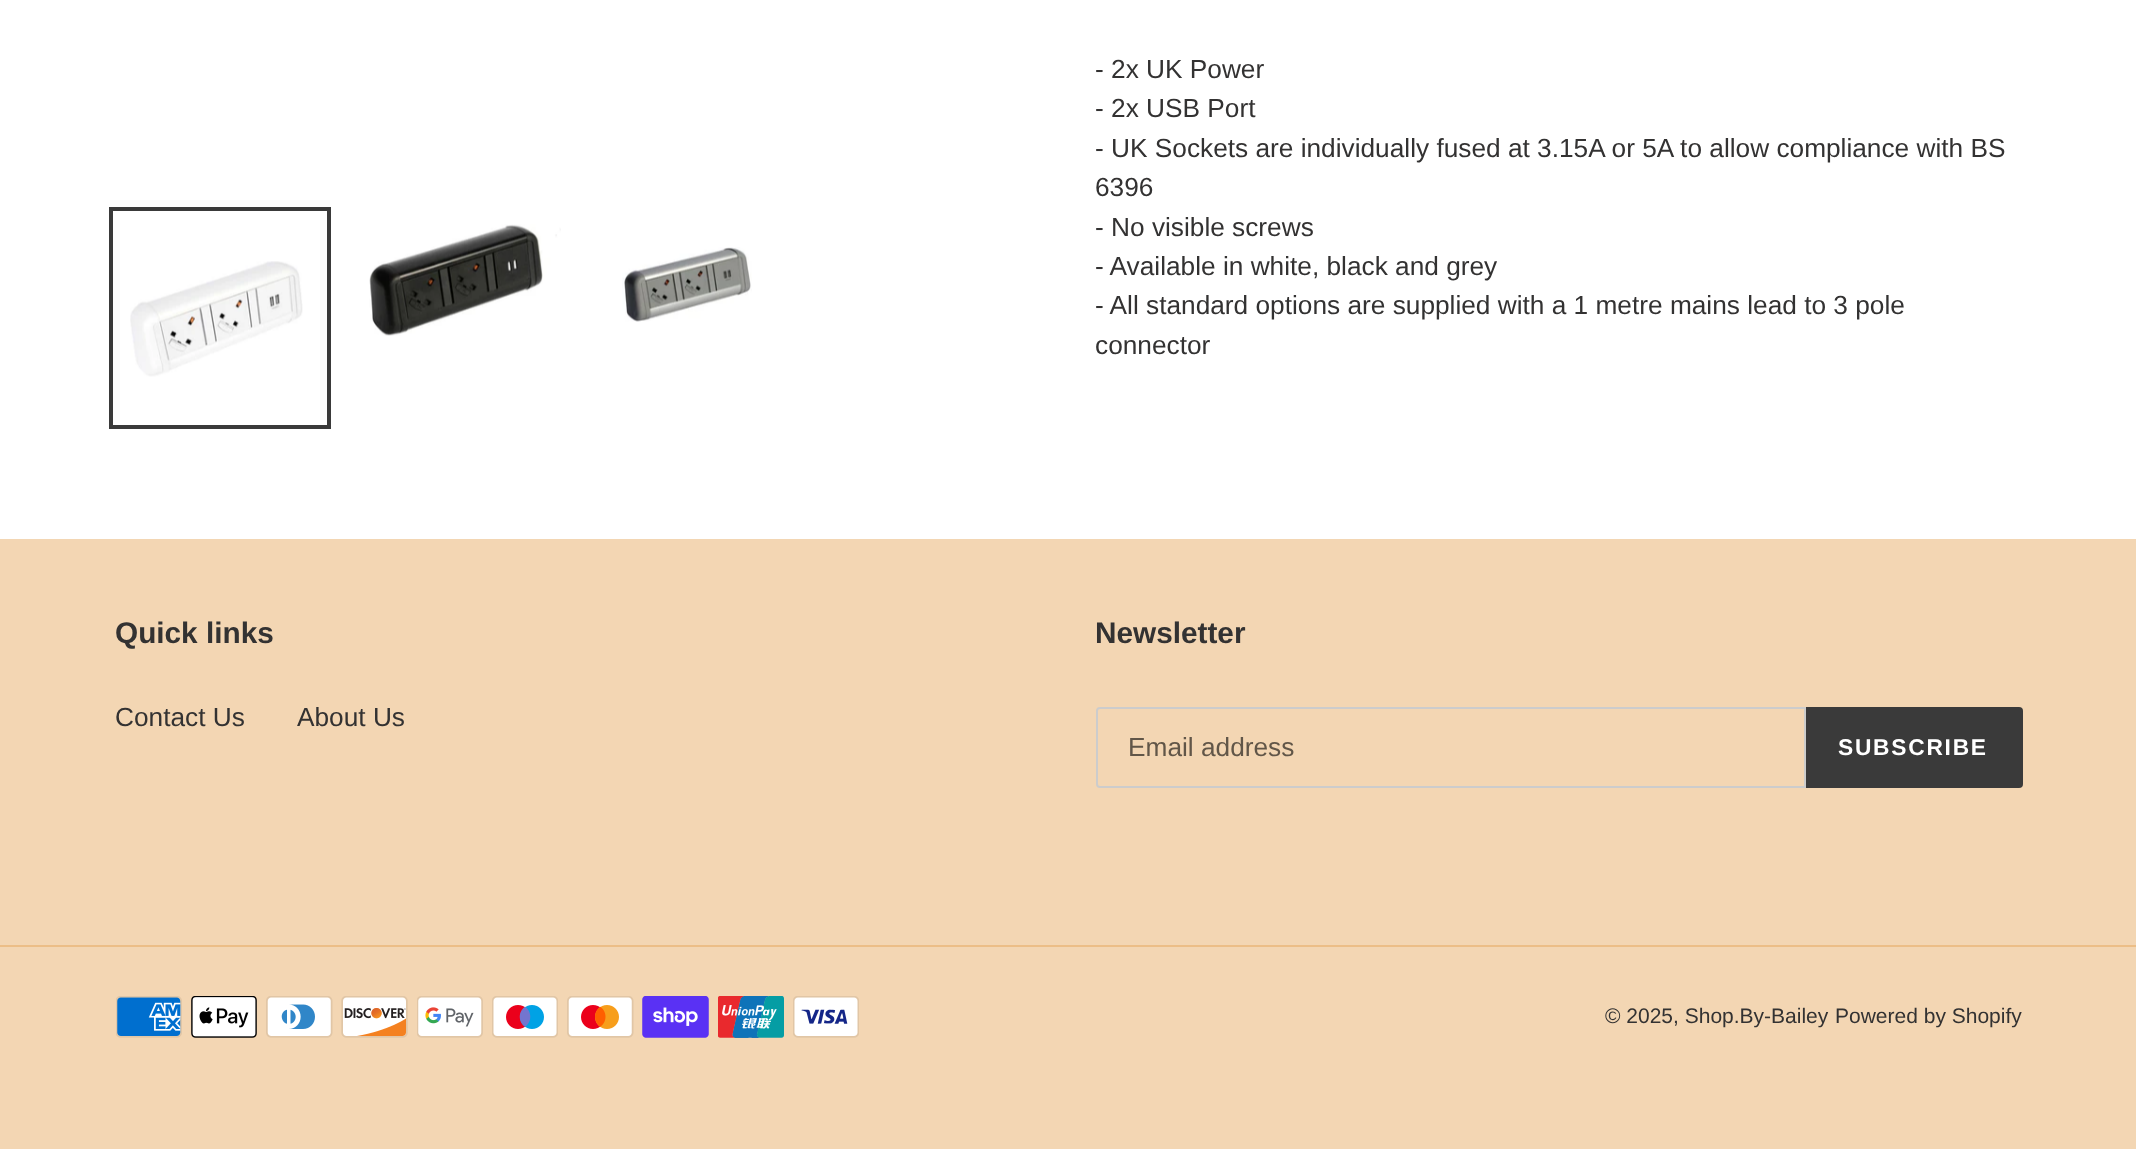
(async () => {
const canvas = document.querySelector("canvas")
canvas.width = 2136
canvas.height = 1149
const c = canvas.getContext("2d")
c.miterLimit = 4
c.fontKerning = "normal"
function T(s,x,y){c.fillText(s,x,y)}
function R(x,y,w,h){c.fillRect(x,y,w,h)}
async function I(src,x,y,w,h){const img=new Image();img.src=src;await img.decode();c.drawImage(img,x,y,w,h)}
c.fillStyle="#fff"
R(0,0,2136,1149)
c.strokeStyle="#3a3a3a"
c.lineWidth=4
c.strokeRect(111,209,218,218)
await I("1.png",130,261,173,116)
await I("2.png",369,224,192,112)
await I("3.png",622,247,130,75)
c.font="26.25px Liberation Sans"
c.fillStyle="#333232"
T("- 2x UK Power",1095,78)
T("- 2x USB Port",1095,117)
T("- UK Sockets are individually fused at 3.15A or 5A to allow compliance with BS",1095,157)
T("6396",1095,196)
T("- No visible screws",1095,236)
T("- Available in white, black and grey",1095,275)
T("- All standard options are supplied with a 1 metre mains lead to 3 pole",1095,314)
T("connector",1095,354)
c.fillStyle="#f3d6b3"
R(0,539,2136,610)
c.font="bold 29.75px Liberation Sans"
c.fillStyle="#333232"
T("Quick links",115,643)
c.font="26.25px Liberation Sans"
T("Contact Us",115,726)
T("About Us",297,726)
c.font="bold 29.75px Liberation Sans"
T("Newsletter",1095,643)
c.beginPath()
c.roundRect(1097,708,708,79,[3,0,0,3])
c.strokeStyle="#ccc"
c.lineWidth=2
c.stroke()
c.font="26.25px Liberation Sans"
c.fillStyle="#615648"
T("Email address",1128,756)
c.fillStyle="#3a3a3a"
c.beginPath()
c.roundRect(1806,707,217,81,[0,4,4,0])
c.fill()
c.letterSpacing="1.75px"
c.font="bold 22.75px Liberation Sans"
c.fillStyle="#fff"
T("SUBSCRIBE",1838,755)
c.fillStyle="#ecbe87"
R(0,945,2136,2)
await I("4.png",116,996,66,42)
await I("5.png",191,996,66,42)
await I("6.png",266,996,67,42)
await I("7.png",341,996,67,42)
await I("8.png",417,996,66,42)
await I("9.png",492,996,66,42)
await I("10.png",567,996,67,42)
await I("11.png",642,996,67,42)
await I("12.png",718,996,66,42)
await I("13.png",793,996,66,42)
c.letterSpacing="0px"
c.font="21px Liberation Sans"
c.fillStyle="#333232"
T("© 2025, Shop.By-Bailey",1605,1023)
T("Powered by Shopify",1835,1023)
})()
